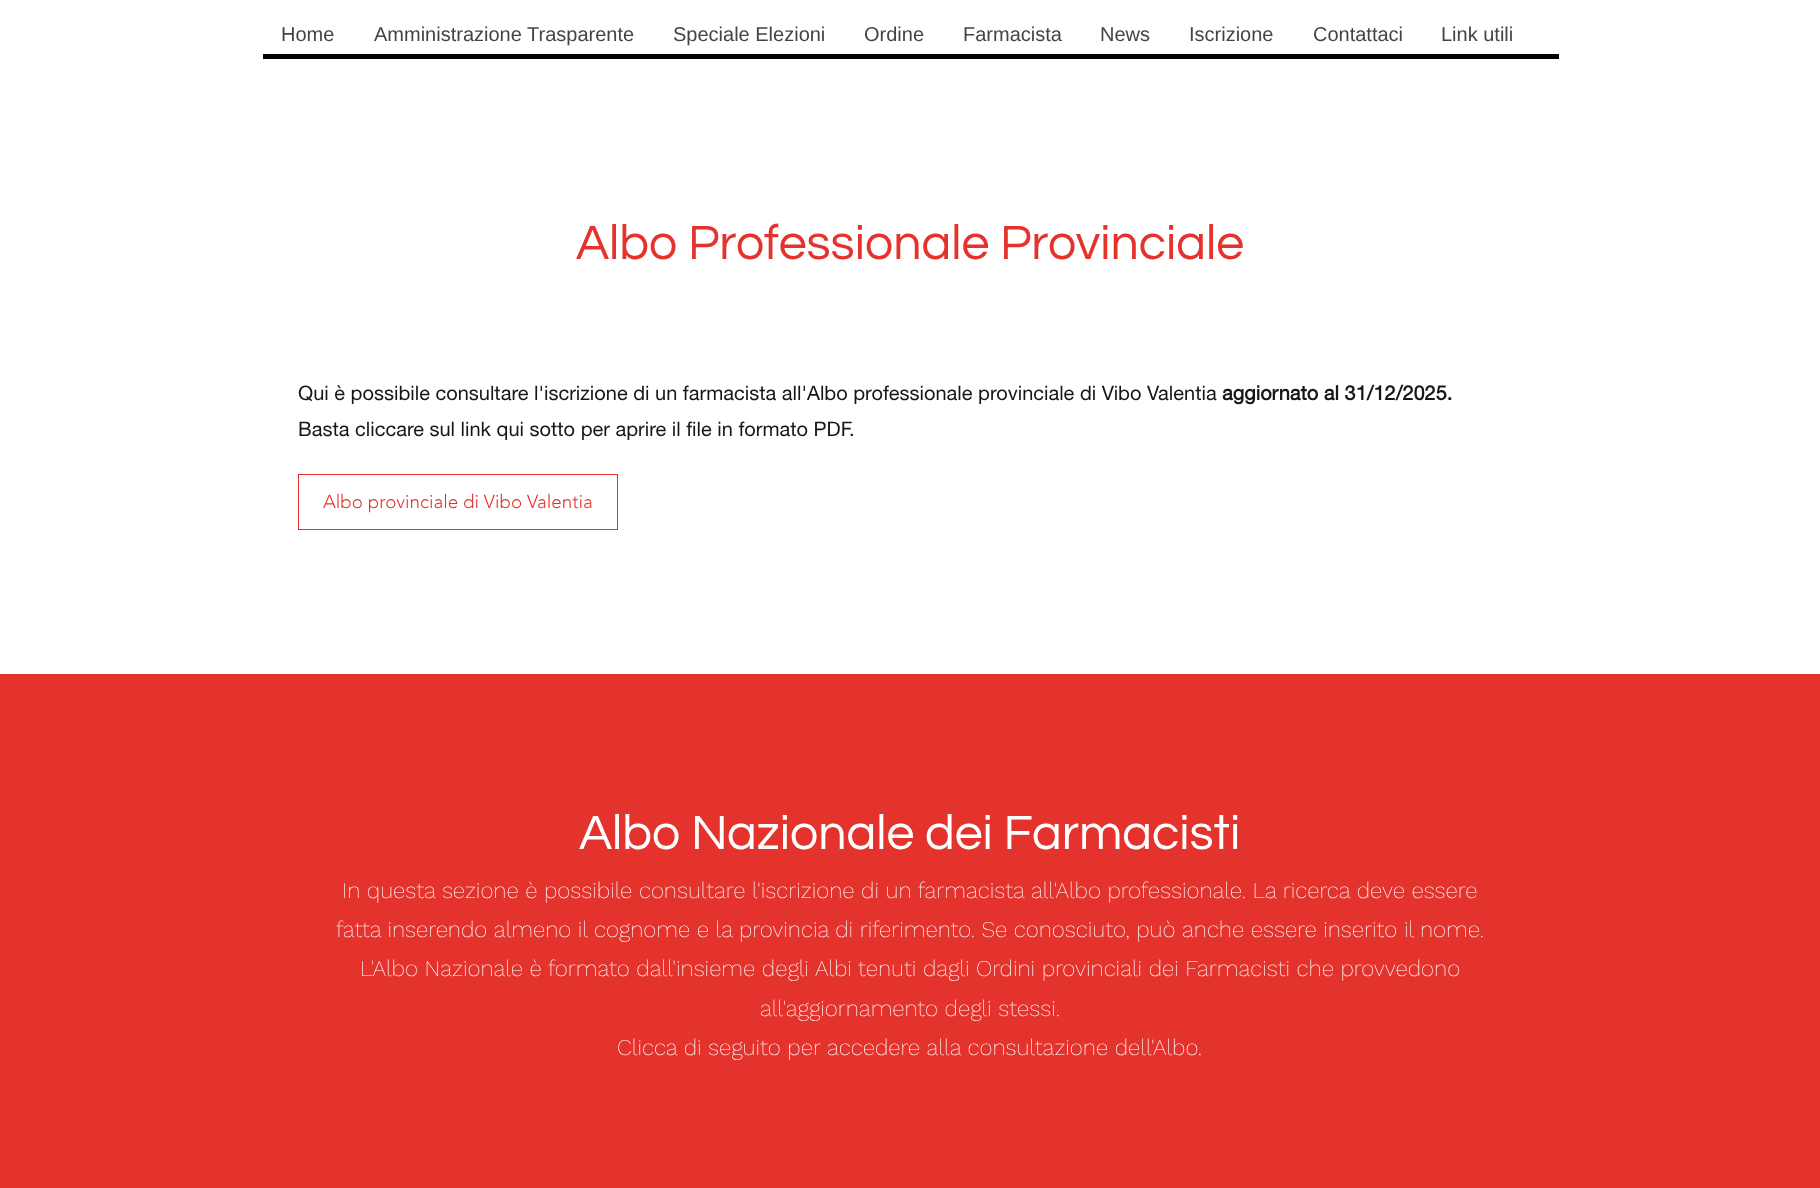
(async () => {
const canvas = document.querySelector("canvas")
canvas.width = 1820
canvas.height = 1188
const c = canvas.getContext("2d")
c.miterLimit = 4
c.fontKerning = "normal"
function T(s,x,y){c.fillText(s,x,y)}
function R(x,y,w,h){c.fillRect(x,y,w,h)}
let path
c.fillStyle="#fff"
R(0,0,1820,1188)
c.fillStyle="#000"
path = new Path2D("M263 54v5h1296v-38v33z")
c.fill(path)
c.font="20px Liberation Sans"
c.fillStyle="#444"
T("Home",281,41)
T("Amministrazione Trasparente",374,41)
T("Speciale Elezioni",673,41)
T("Ordine",864,41)
T("Farmacista",963,41)
T("News",1100,41)
T("Iscrizione",1189,41)
T("Contattaci",1313,41)
T("Link utili",1441,41)
c.font="50px Questrial"
c.fillStyle="#e4332c"
T("Albo Professionale Provinciale",576,259)
c.font="20px 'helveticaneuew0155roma'"
c.fillStyle="#181717"
T("Qui è possibile consultare l'iscrizione di un farmacista all'Albo professionale provinciale di Vibo Valentia",298,400)
c.font="bold 20px 'helveticaneuew0155roma'"
T("aggiornato al 31/12/2025.",1222,400)
c.font="20px 'helveticaneuew0155roma'"
T("Basta cliccare sul link qui sotto per aprire il file in formato PDF.",298,436)
c.strokeStyle="#e4332c"
c.strokeRect(298.5,474.5,319,55)
c.font="300 18.75px 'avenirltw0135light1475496'"
c.fillStyle="#e4332c"
T("Albo provinciale di Vibo Valentia",323,508)
R(0,674,1820,514)
c.font="50px Questrial"
c.fillStyle="#fff"
T("Albo Nazionale dei Farmacisti",579,849)
c.font="200 22.5px Work Sans"
T("In questa sezione è possibile consultare l'iscrizione di un farmacista all'Albo professionale. La ricerca deve essere",342,898)
T("fatta inserendo almeno il cognome e la provincia di riferimento. Se conosciuto, può anche essere inserito il nome.",336,937)
T("L'Albo Nazionale è formato dall'insieme degli Albi tenuti dagli Ordini provinciali dei Farmacisti che provvedono",360,976)
T("all'aggiornamento degli stessi.",760,1016)
T("Clicca di seguito per accedere alla consultazione dell'Albo.",617,1055)
})()
